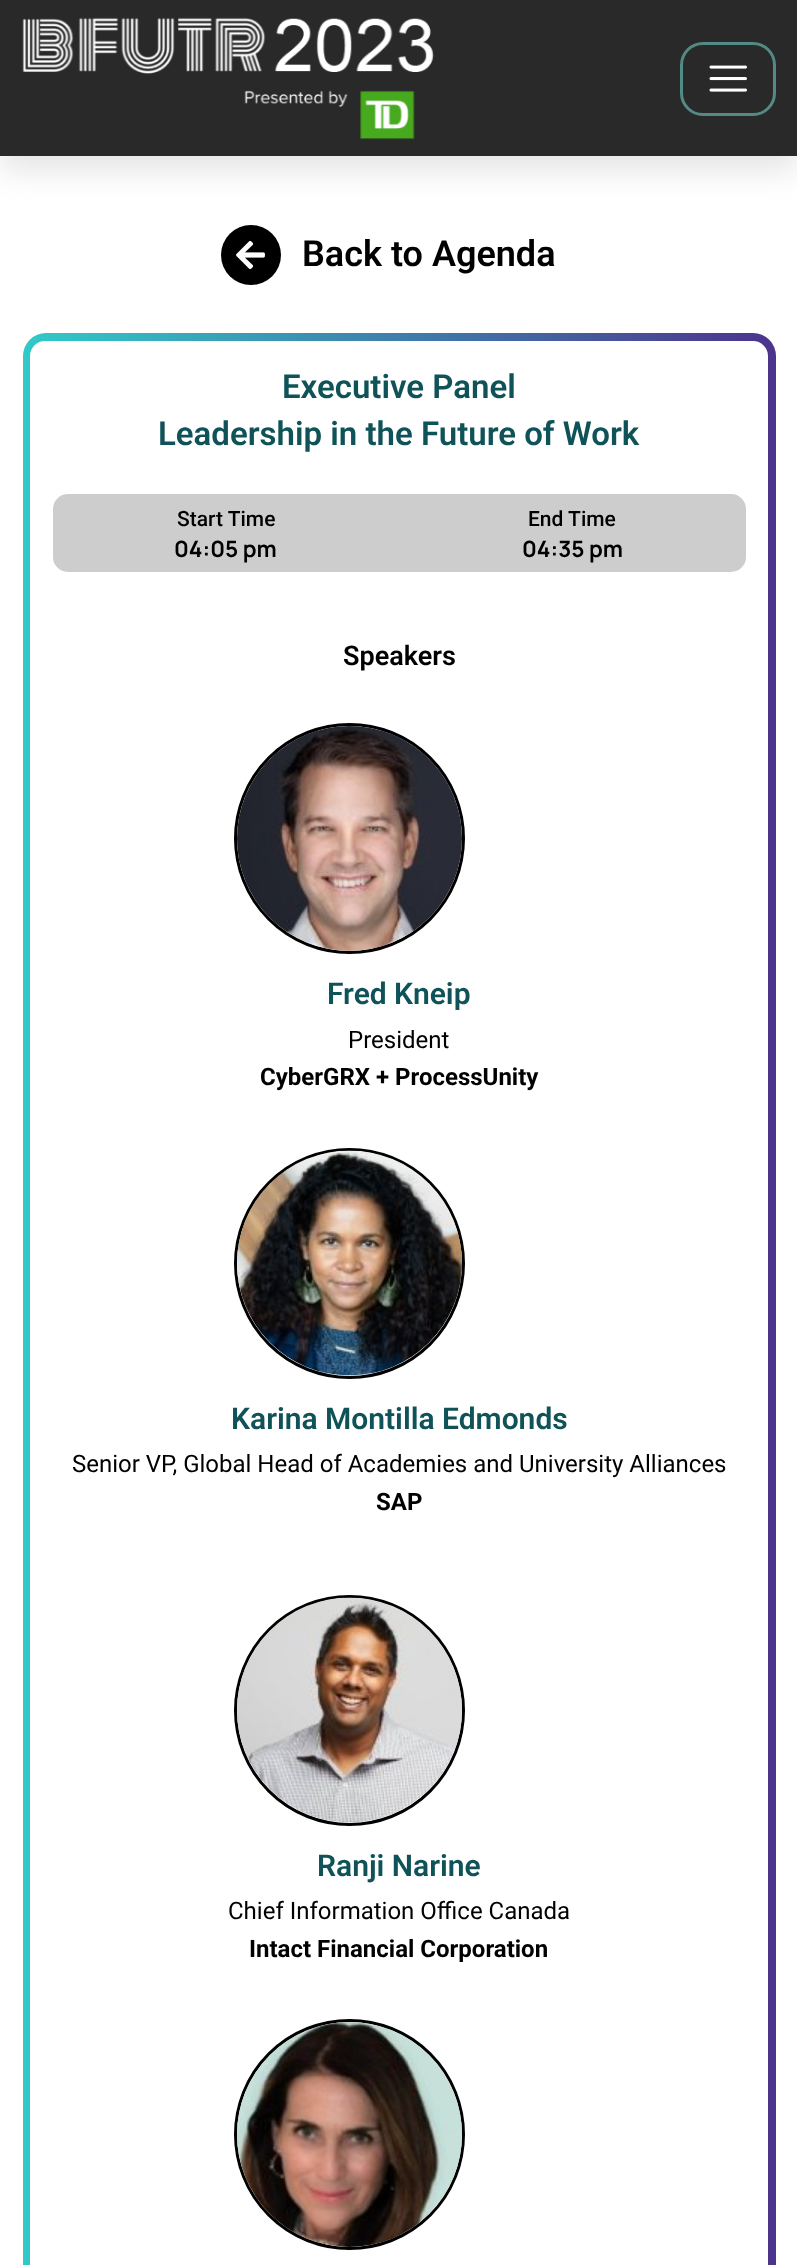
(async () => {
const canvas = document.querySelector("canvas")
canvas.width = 797
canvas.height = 2265
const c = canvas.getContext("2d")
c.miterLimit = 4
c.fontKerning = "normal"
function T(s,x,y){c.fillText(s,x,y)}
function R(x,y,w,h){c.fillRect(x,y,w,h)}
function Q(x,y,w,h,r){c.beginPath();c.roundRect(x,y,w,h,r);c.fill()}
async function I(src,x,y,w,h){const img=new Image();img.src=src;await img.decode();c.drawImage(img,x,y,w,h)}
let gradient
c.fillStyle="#fff"
R(0,0,797,2265)
c.fillStyle="#0000001a"
c.filter="blur(15px)"
c.beginPath()
c.rect(0,15,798,156)
c.fill()
c.filter="none"
c.fillStyle="#292929"
R(0,0,797,156)
await I("1.png",22,17,412,123)
c.beginPath()
c.roundRect(681.5,43.5,93,71,21.5)
c.strokeStyle="#538a85"
c.lineWidth=3
c.stroke()
await I("2.png",709,65,38,27)
c.fillStyle="#000"
c.beginPath()
c.arc(251,255,30,0,7)
c.fill()
await I("3.png",236,240,29,30)
c.font="600 36px Roboto"
T("Back to Agenda",302,266)
gradient = c.createLinearGradient(22,2008,776,2008)
gradient.addColorStop(0,"#30cac8")
gradient.addColorStop(1,"#4d338d")
c.fillStyle = gradient
Q(23,333,753,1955,23)
c.fillStyle="#fff"
Q(30,341,738,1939,15)
c.font="600 33px Roboto"
c.fillStyle="#0f5358"
T("Executive Panel",282,398)
T("Leadership in the Future of Work",158,445)
c.fillStyle="#cdcdcd"
c.beginPath()
c.roundRect(53,494,346,78,[15,0,0,15])
c.fill()
c.font="500 21px Roboto"
c.fillStyle="#000"
T("Start Time",177,526)
c.font="bold 22.5px Manrope"
T("04:05 pm",174,557)
c.fillStyle="#cdcdcd"
c.beginPath()
c.roundRect(399,494,347,78,[0,15,15,0])
c.fill()
c.font="500 21px Roboto"
c.fillStyle="#000"
T("End Time",528,526)
c.font="bold 22.5px Manrope"
T("04:35 pm",522,557)
c.font="600 27px Roboto"
T("Speakers",343,665)
c.beginPath()
c.arc(349.5,838.5,114,0,7)
c.strokeStyle="#000"
c.stroke()
await I("4.png",237,726,225,225)
c.font="600 30px Roboto"
c.fillStyle="#0f5358"
T("Fred Kneip",327,1004)
c.font="24px Roboto"
c.fillStyle="#000"
T("President",348,1048)
c.font="bold 24px Roboto"
T("CyberGRX + ProcessUnity",260,1085)
c.beginPath()
c.arc(349.5,1263.5,114,0,7)
c.stroke()
await I("5.png",237,1150,225,226)
c.font="600 30px Roboto"
c.fillStyle="#0f5358"
T("Karina Montilla Edmonds",231,1429)
c.font="24px Roboto"
c.fillStyle="#000"
T("Senior VP, Global Head of Academies and University Alliances",72,1472)
c.font="bold 24px Roboto"
T("SAP",376,1510)
c.beginPath()
c.arc(349.5,1710.5,114,0,7)
c.stroke()
await I("6.png",237,1597,225,226)
c.font="600 30px Roboto"
c.fillStyle="#0f5358"
T("Ranji Narine",317,1876)
c.font="24px Roboto"
c.fillStyle="#000"
T("Chief Information Office Canada",228,1919)
c.font="bold 24px Roboto"
T("Intact Financial Corporation",249,1957)
c.beginPath()
c.arc(349.5,2134.5,114,0,7)
c.stroke()
await I("7.png",237,2022,225,225)
})()
